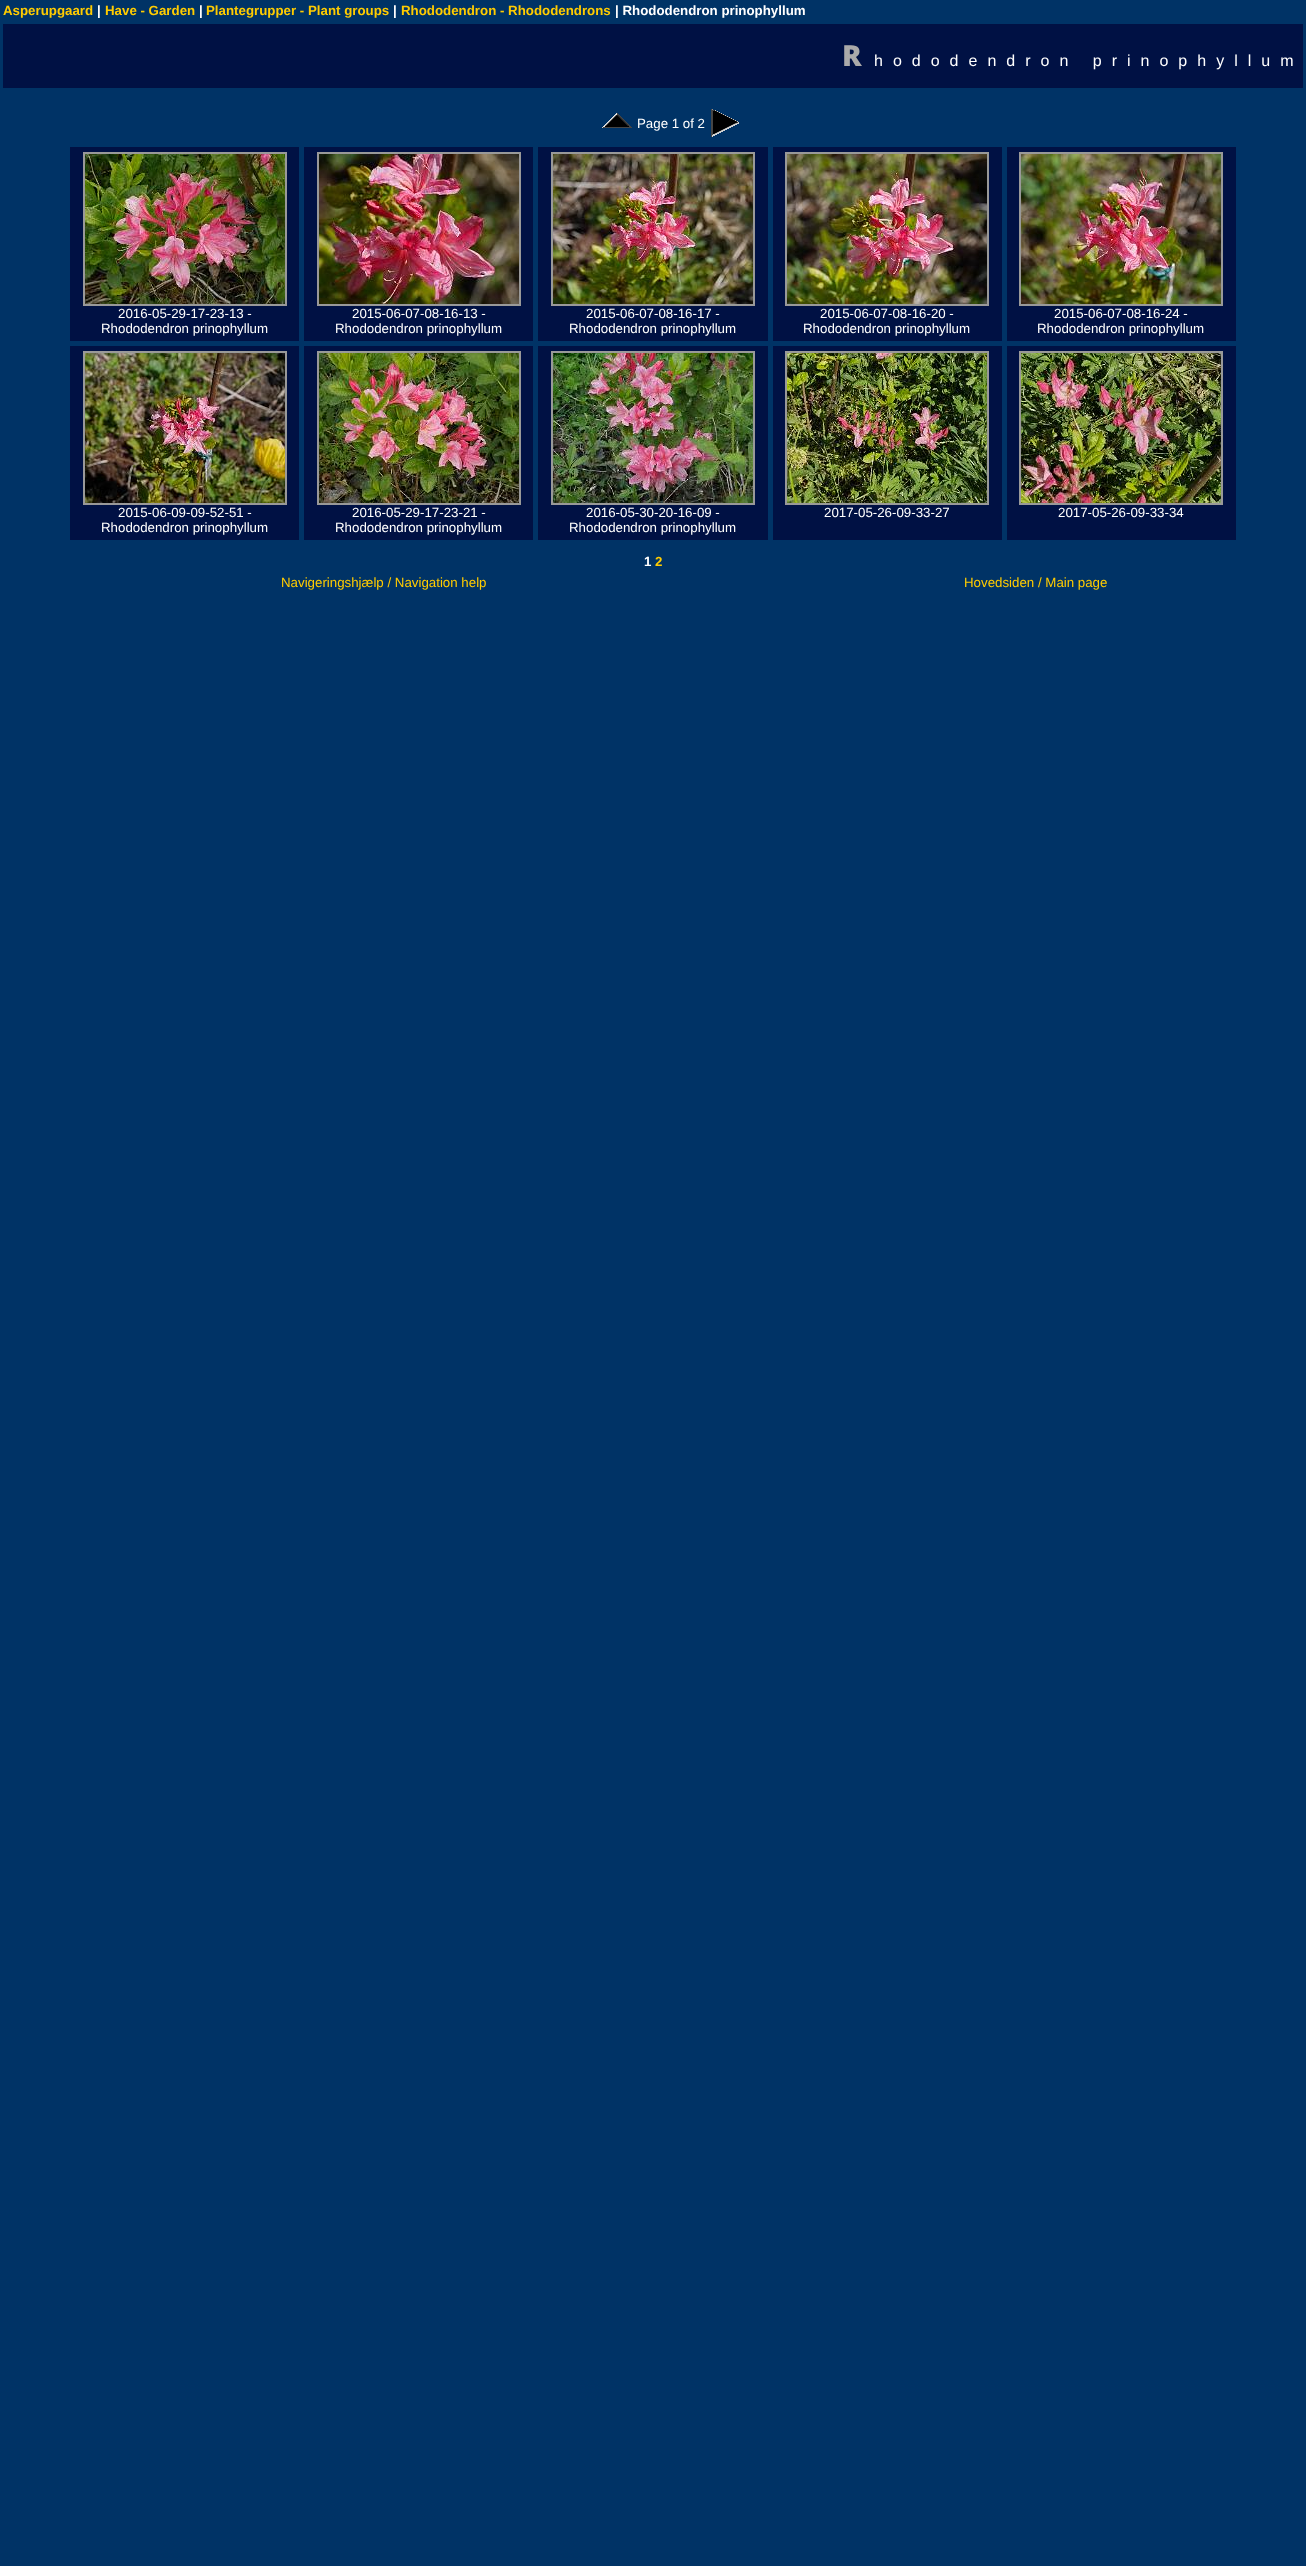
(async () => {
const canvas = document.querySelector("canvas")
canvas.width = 1306
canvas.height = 2566
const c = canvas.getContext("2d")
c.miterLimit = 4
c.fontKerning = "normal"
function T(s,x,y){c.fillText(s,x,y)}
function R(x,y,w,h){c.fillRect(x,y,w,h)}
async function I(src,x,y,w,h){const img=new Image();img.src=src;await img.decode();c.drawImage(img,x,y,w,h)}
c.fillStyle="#036"
R(0,0,1306,2566)
c.font="bold 13.3px Liberation Sans"
c.fillStyle="#fc0"
T("Asperupgaard",3,15)
c.fillStyle="#fff"
T("|",97,15)
c.fillStyle="#fc0"
T("Have - Garden",105,15)
c.fillStyle="#fff"
T("|",199,15)
c.fillStyle="#fc0"
T("Plantegrupper - Plant groups",206,15)
c.fillStyle="#fff"
T("|",393,15)
c.fillStyle="#fc0"
T("Rhododendron - Rhododendrons",401,15)
c.fillStyle="#fff"
T("| Rhododendron prinophyllum",615,15)
c.fillStyle="#014"
R(3,24,1300,64)
c.letterSpacing="10px"
c.font="900 29px Noto Sans"
c.fillStyle="#aaa"
T("R",842,66)
c.font="16px Liberation Sans"
c.fillStyle="#fff"
T("hododendron prinophyllum",874,66)
await I("1.png",602,113,30,15)
c.letterSpacing="0px"
c.font="13.3px Liberation Sans"
T("Page 1 of 2",637,128)
await I("2.png",711,109,28,28)
c.fillStyle="#014"
R(70,147,229,194)
c.strokeStyle="#999"
c.lineWidth=2
c.strokeRect(84,153,202,152)
await I("3.png",85,154,200,150)
c.fillStyle="#fff"
T("2016-05-29-17-23-13 -",118,318)
T("Rhododendron prinophyllum",101,333)
c.fillStyle="#014"
R(304,147,229,194)
c.strokeRect(318,153,202,152)
await I("4.png",319,154,200,150)
c.fillStyle="#fff"
T("2015-06-07-08-16-13 -",352,318)
T("Rhododendron prinophyllum",335,333)
c.fillStyle="#014"
R(538,147,230,194)
c.strokeRect(552,153,202,152)
await I("5.png",553,154,200,150)
c.fillStyle="#fff"
T("2015-06-07-08-16-17 -",586,318)
T("Rhododendron prinophyllum",569,333)
c.fillStyle="#014"
R(773,147,229,194)
c.strokeRect(786,153,202,152)
await I("6.png",787,154,200,150)
c.fillStyle="#fff"
T("2015-06-07-08-16-20 -",820,318)
T("Rhododendron prinophyllum",803,333)
c.fillStyle="#014"
R(1007,147,229,194)
c.strokeRect(1020,153,202,152)
await I("7.png",1021,154,200,150)
c.fillStyle="#fff"
T("2015-06-07-08-16-24 -",1054,318)
T("Rhododendron prinophyllum",1037,333)
c.fillStyle="#014"
R(70,346,229,194)
c.strokeRect(84,352,202,152)
await I("8.png",85,353,200,150)
c.fillStyle="#fff"
T("2015-06-09-09-52-51 -",118,517)
T("Rhododendron prinophyllum",101,532)
c.fillStyle="#014"
R(304,346,229,194)
c.strokeRect(318,352,202,152)
await I("9.png",319,353,200,150)
c.fillStyle="#fff"
T("2016-05-29-17-23-21 -",352,517)
T("Rhododendron prinophyllum",335,532)
c.fillStyle="#014"
R(538,346,230,194)
c.strokeRect(552,352,202,152)
await I("10.png",553,353,200,150)
c.fillStyle="#fff"
T("2016-05-30-20-16-09 -",586,517)
T("Rhododendron prinophyllum",569,532)
c.fillStyle="#014"
R(773,346,229,194)
c.strokeRect(786,352,202,152)
await I("11.png",787,353,200,150)
c.fillStyle="#fff"
T("2017-05-26-09-33-27",824,517)
c.fillStyle="#014"
R(1007,346,229,194)
c.strokeRect(1020,352,202,152)
await I("12.png",1021,353,200,150)
c.fillStyle="#fff"
T("2017-05-26-09-33-34",1058,517)
c.font="bold 13.3px Liberation Sans"
T("1",644,566)
c.fillStyle="#fc0"
T("2",655,566)
c.font="13.3px Liberation Sans"
T("Navigeringshjælp / Navigation help",281,587)
T("Hovedsiden / Main page",964,587)
})()
